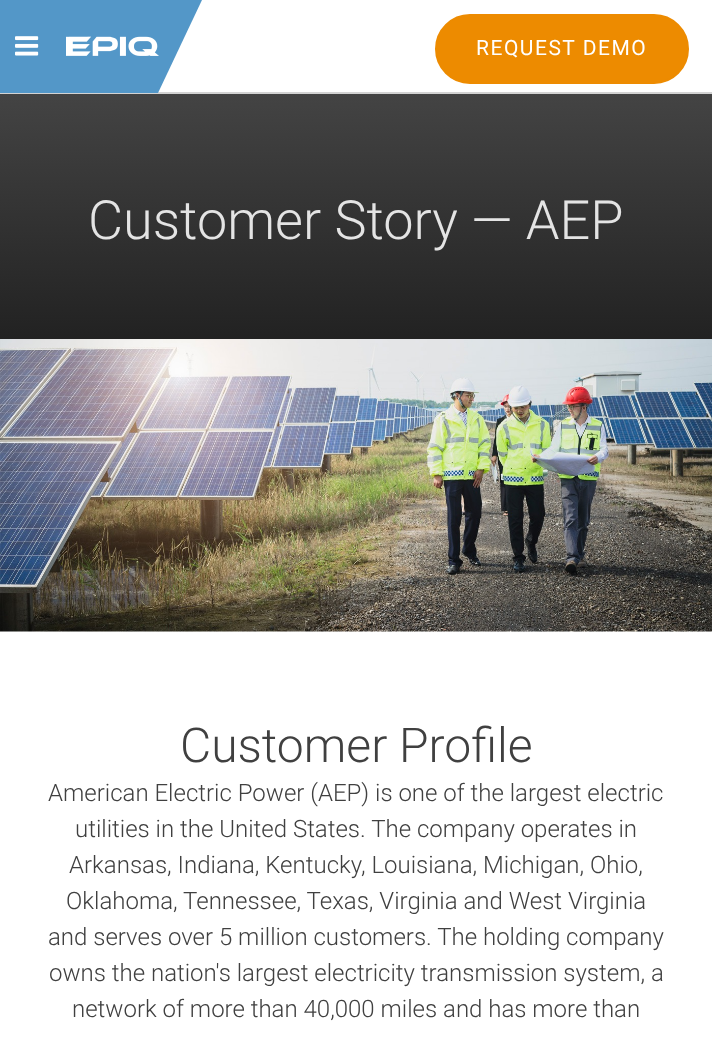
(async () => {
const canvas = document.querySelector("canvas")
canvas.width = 712
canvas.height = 1043
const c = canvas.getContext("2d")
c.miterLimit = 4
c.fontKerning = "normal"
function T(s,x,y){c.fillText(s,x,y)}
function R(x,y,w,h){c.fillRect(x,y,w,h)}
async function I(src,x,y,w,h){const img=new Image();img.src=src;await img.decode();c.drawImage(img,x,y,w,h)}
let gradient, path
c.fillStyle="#fff"
R(0,0,712,1043)
c.fillStyle="#d3d3d3"
R(0,92,712,2)
c.fillStyle="#5397c8"
path = new Path2D("M52 0h150l-44 93h-150z")
c.fill(path)
R(0,0,52,93)
await I("1.png",15,36,24,20)
await I("2.png",66,36,93,20)
c.fillStyle="#ed8b00"
c.beginPath()
c.roundRect(436,15,252,68,34)
c.fill()
c.strokeStyle="#ed8b00"
c.lineWidth=2
c.stroke()
c.letterSpacing="1.5px"
c.font="21px Roboto"
c.fillStyle="#fff"
T("REQUEST DEMO",476,55)
gradient = c.createLinearGradient(356,91,356,339)
gradient.addColorStop(0,"#444")
gradient.addColorStop(1,"#222")
c.fillStyle = gradient
R(0,94,712,245)
c.letterSpacing="0px"
c.font="300 54px Roboto"
c.fillStyle="#e4e4e4"
T("Customer Story — AEP",88,239)
await I("3.png",0,339,712,293)
c.font="300 48px Roboto"
c.fillStyle="#404040"
T("Customer Profile",180,762)
c.font="300 24px Roboto"
T("American Electric Power (AEP) is one of the largest electric",48,801)
T("utilities in the United States. The company operates in",75,837)
T("Arkansas, Indiana, Kentucky, Louisiana, Michigan, Ohio,",69,873)
T("Oklahoma, Tennessee, Texas, Virginia and West Virginia",66,909)
T("and serves over 5 million customers. The holding company",48,945)
T("owns the nation's largest electricity transmission system, a",49,981)
T("network of more than 40,000 miles and has more than",72,1017)
})()
